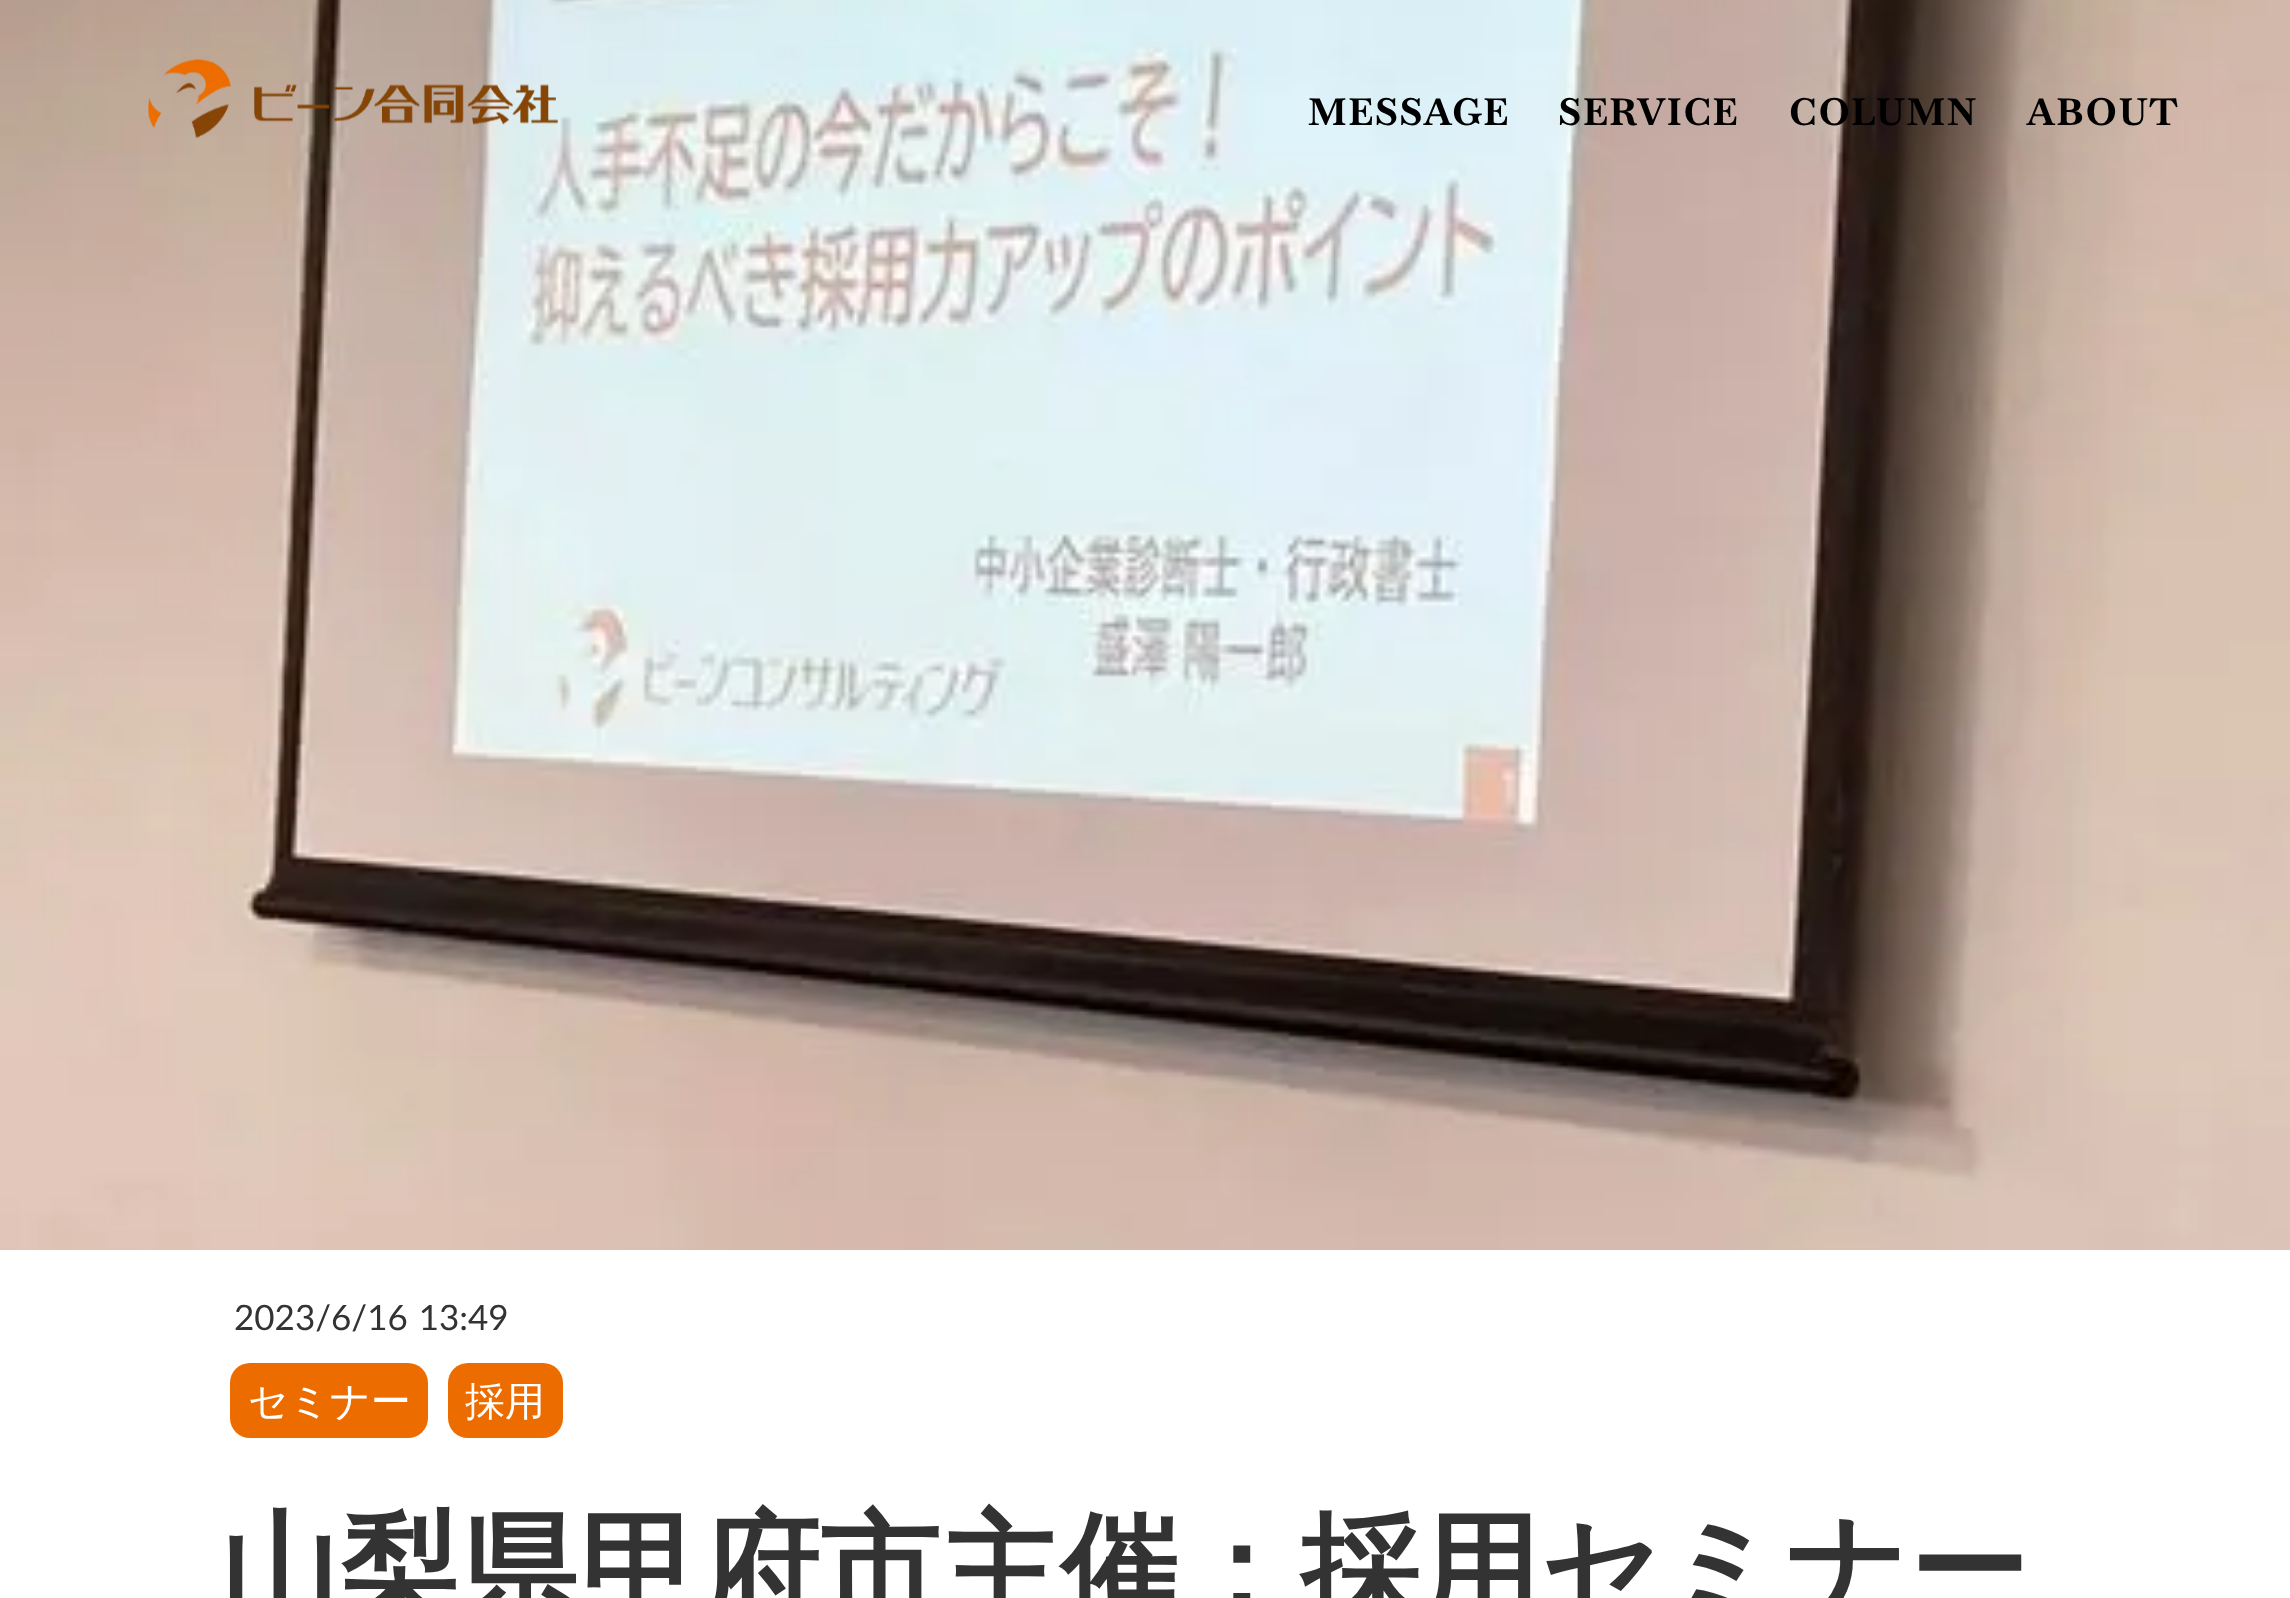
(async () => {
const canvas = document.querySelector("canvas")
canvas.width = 2290
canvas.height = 1598
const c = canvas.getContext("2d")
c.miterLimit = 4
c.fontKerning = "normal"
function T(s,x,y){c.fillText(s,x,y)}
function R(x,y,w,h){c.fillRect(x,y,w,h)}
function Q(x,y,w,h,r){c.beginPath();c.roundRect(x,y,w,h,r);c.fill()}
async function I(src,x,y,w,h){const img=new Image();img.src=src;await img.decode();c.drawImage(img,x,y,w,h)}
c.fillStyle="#fff"
R(0,0,2290,1598)
await I("1.png",0,0,2290,1250)
await I("2.png",148,59,410,80)
c.letterSpacing="2px"
c.font="bold 37.5px Baskervville"
c.fillStyle="#000"
T("MESSAGE",1308,125)
T("SERVICE",1558,125)
T("COLUMN",1789,125)
T("ABOUT",2027,125)
c.letterSpacing="0px"
c.wordSpacing="2px"
c.font="35px Lato"
c.fillStyle="#333"
T("2023/6/16 13:49",234,1330)
c.fillStyle="#ed6c00"
Q(230,1363,198,75,20)
c.wordSpacing="0px"
c.font="500 40px WenQuanYi Zen Hei"
c.fillStyle="#fff"
T("セミナー",248,1415)
c.fillStyle="#ed6c00"
Q(448,1363,115,75,20)
c.fillStyle="#fff"
T("採用",465,1415)
c.font="bold 120px WenQuanYi Zen Hei"
c.fillStyle="#333"
T("山梨県甲府市主催：採用セミナー",220,1610)
})()
